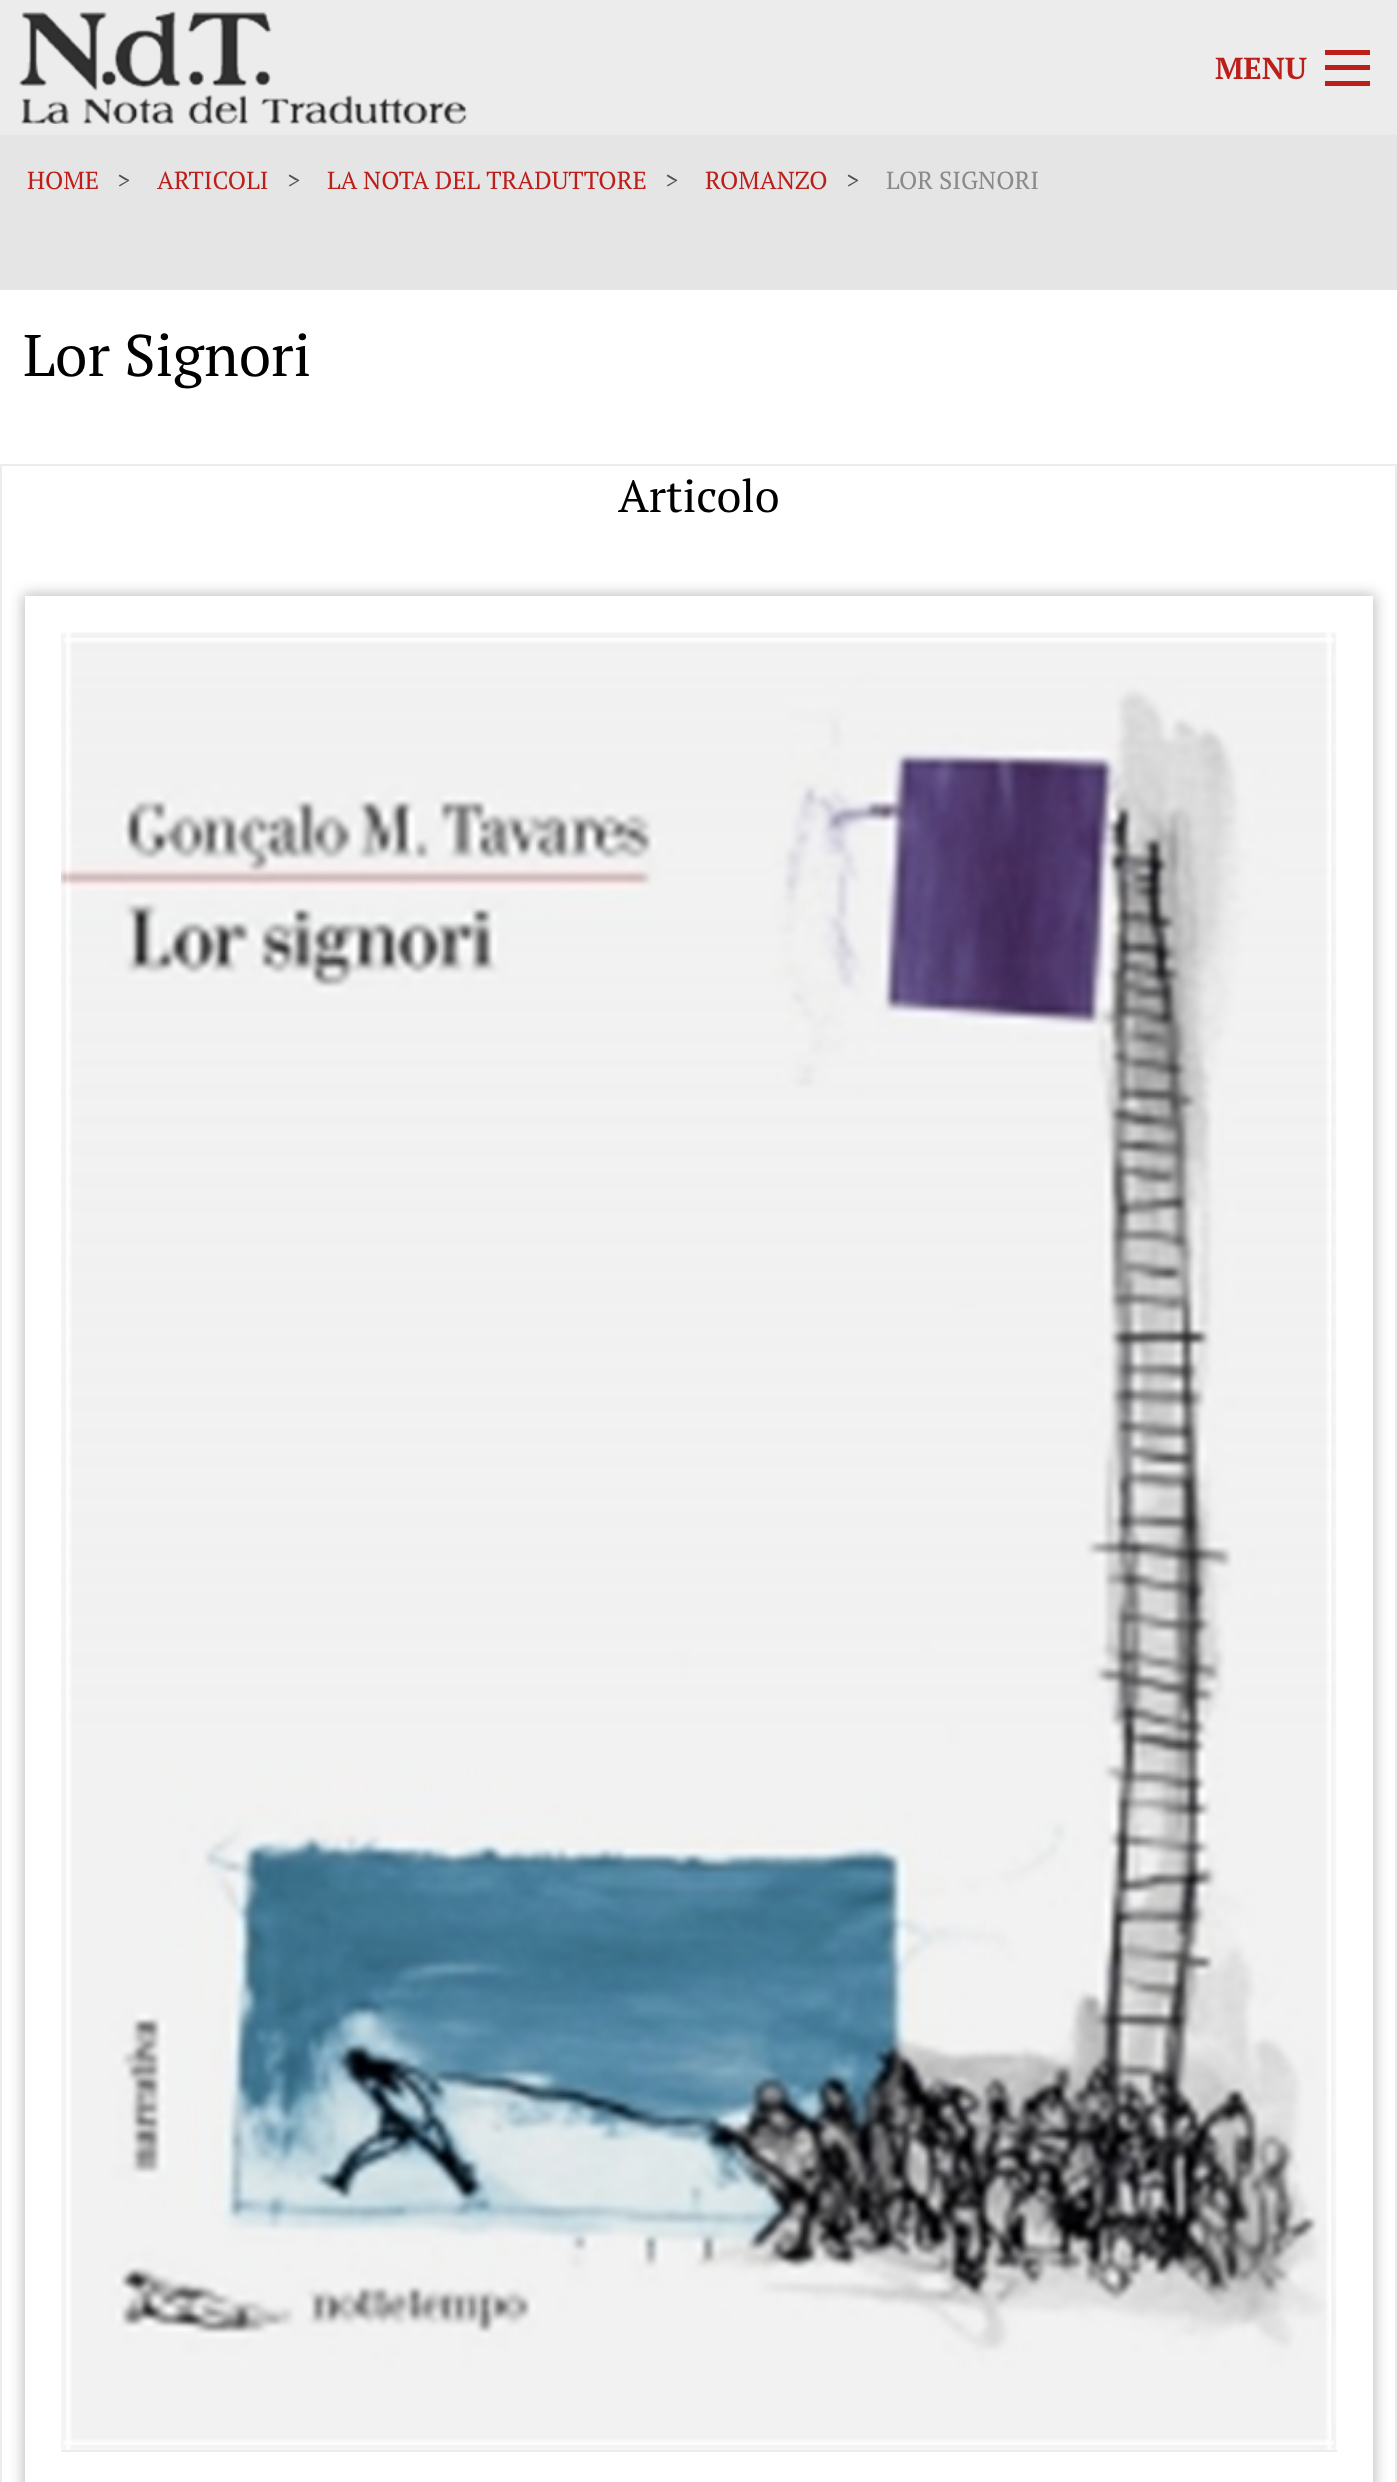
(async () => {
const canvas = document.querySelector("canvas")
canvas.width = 1397
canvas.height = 2482
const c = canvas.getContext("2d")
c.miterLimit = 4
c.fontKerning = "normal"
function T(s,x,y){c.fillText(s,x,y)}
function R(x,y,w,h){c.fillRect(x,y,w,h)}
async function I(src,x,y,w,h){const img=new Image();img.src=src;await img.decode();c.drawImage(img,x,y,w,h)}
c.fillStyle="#fff"
R(0,0,1397,2482)
c.fillStyle="#ececec"
R(0,0,1397,135)
await I("1.png",19,11,448,113)
c.font="bold 30.5px PT Serif"
c.fillStyle="#bc1e1a"
T("MENU",1215,79)
R(1325,81,45,5)
R(1325,50,45,5)
R(1325,65,45,5)
c.fillStyle="#e5e5e5"
R(0,135,1397,155)
c.font="24.75px PT Serif"
c.fillStyle="#bc1e1a"
T("HOME",27,189)
c.fillStyle="#535050"
T(">",117,189)
c.fillStyle="#bc1e1a"
T("ARTICOLI",157,189)
c.fillStyle="#535050"
T(">",287,189)
c.fillStyle="#bc1e1a"
T("LA NOTA DEL TRADUTTORE",327,189)
c.fillStyle="#535050"
T(">",665,189)
c.fillStyle="#bc1e1a"
T("ROMANZO",705,189)
c.fillStyle="#535050"
T(">",846,189)
c.fillStyle="#8a8a8a"
T("LOR SIGNORI",886,189)
c.font="58.5px PT Serif"
c.fillStyle="#000"
T("Lor Signori",23,376)
c.strokeStyle="#ececec"
c.lineWidth=2
c.strokeRect(1,465,1395,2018)
c.font="45px PT Serif"
T("Articolo",618,512)
c.fillStyle="#c1bebe"
c.filter="blur(7px)"
c.beginPath()
c.rect(23,594,1352,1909)
c.fill()
c.filter="none"
c.fillStyle="#fff"
R(25,596,1348,1886)
c.fillStyle="#ececec"
R(61,2450,1276,2)
await I("2.png",61,632,1276,1818)
})()
